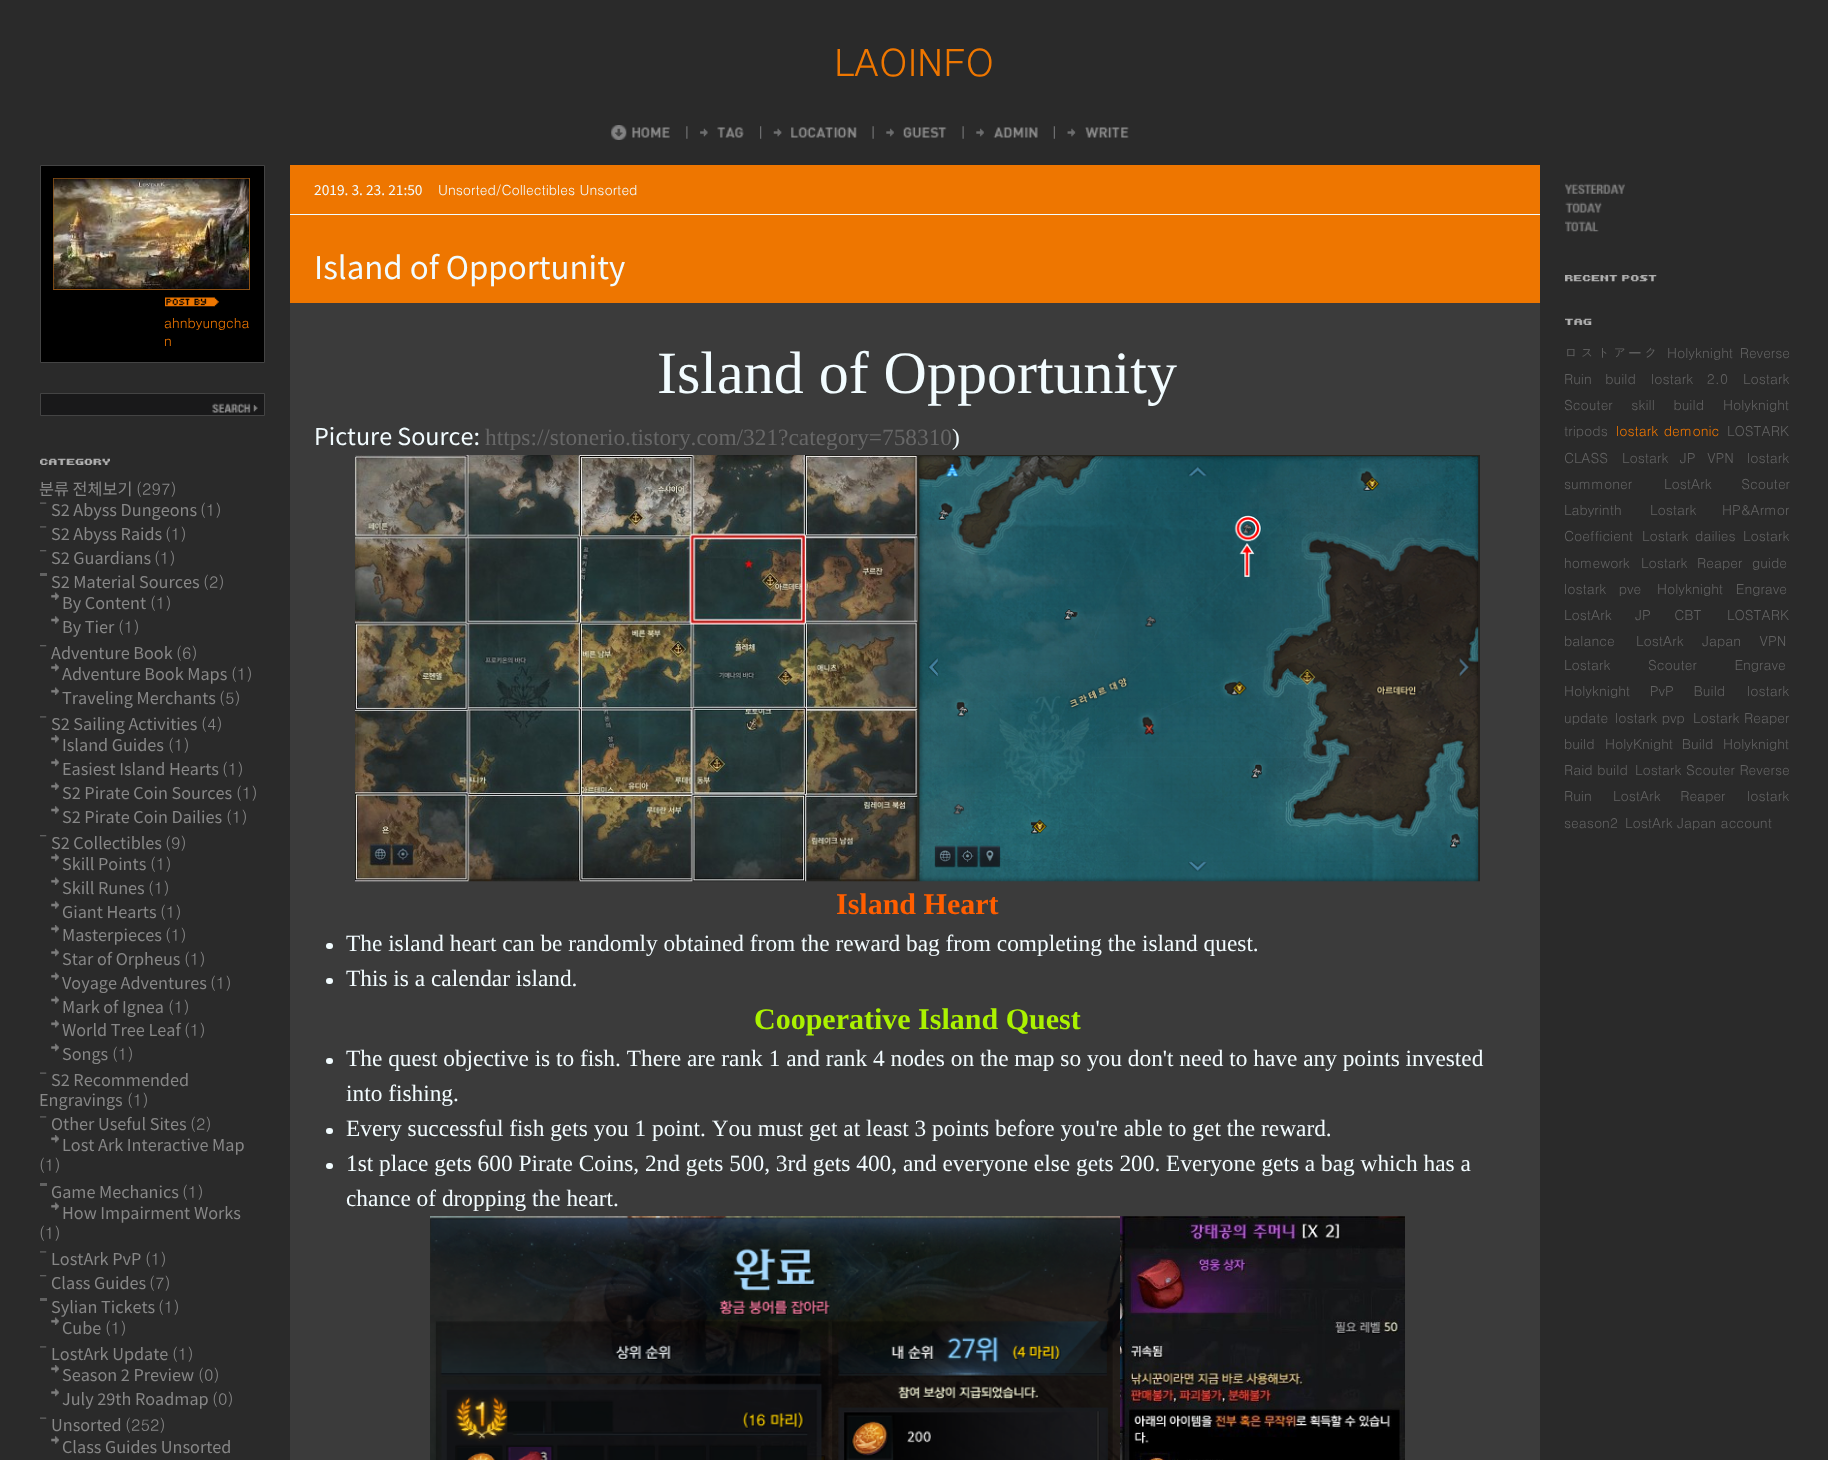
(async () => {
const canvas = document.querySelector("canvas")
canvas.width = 1828
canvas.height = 1460
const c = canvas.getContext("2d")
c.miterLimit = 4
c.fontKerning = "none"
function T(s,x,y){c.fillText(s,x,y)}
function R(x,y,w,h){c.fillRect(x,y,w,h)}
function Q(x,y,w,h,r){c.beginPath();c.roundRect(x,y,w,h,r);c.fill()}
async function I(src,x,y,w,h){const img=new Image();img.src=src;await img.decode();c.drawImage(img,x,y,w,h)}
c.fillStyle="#2a2a2a"
R(0,0,1828,1460)
c.font="37.5px Dotum"
c.fillStyle="#ee7600"
T("LAOINFO",834,76)
await I("1.png",686,126,2,13)
await I("2.png",611,125,59,15)
await I("3.png",760,126,2,13)
await I("4.png",700,127,44,11)
await I("5.png",872,126,2,13)
await I("6.png",773,127,84,11)
await I("5.png",962,126,2,13)
await I("7.png",886,127,61,11)
await I("8.png",1053,126,2,13)
await I("9.png",976,127,62,11)
await I("10.png",1067,127,62,11)
c.fillStyle="#000"
c.beginPath()
c.rect(40.5,165.5,224,197)
c.fill()
c.strokeStyle="#444"
c.stroke()
c.strokeStyle="#8c5015"
c.strokeRect(53.5,178.5,196,111)
await I("11.png",53,178,196,111)
await I("12.png",165,297,54,10)
c.font="13.75px Dotum"
c.fillStyle="#ee7600"
T("ahnbyungcha",164,328)
T("n",164,346)
c.fillStyle="#19191a"
c.beginPath()
c.rect(40.5,393.5,224,22)
c.fill()
c.strokeStyle="#444"
c.stroke()
await I("13.png",212,403,46,10)
await I("14.png",40,458,70,7)
c.font="16.25px Noto Sans KR"
c.fillStyle="#878787"
T("분류 전체보기",39,495)
c.font="16.25px Dotum"
T("(297)",136,495)
await I("15.png",40,502,7,2)
c.font="16.25px Noto Sans KR"
T("S2 Abyss Dungeons",51,516)
c.font="16.25px Dotum"
T("(1)",200,516)
await I("16.png",40,526,7,2)
c.font="16.25px Noto Sans KR"
T("S2 Abyss Raids",51,540)
c.font="16.25px Dotum"
T("(1)",165,540)
await I("17.png",40,550,7,2)
c.font="16.25px Noto Sans KR"
T("S2 Guardians",51,564)
c.font="16.25px Dotum"
T("(1)",154,564)
c.font="16.25px Noto Sans KR"
T("S2 Material Sources",51,588)
c.fillStyle="#626262"
R(40,573,7,3)
c.font="16.25px Dotum"
c.fillStyle="#878787"
T("(2)",203,588)
await I("18.png",51,592,8,8)
c.font="16.25px Noto Sans KR"
T("By Content",62,609)
c.font="16.25px Dotum"
T("(1)",150,609)
await I("19.png",51,616,8,8)
c.font="16.25px Noto Sans KR"
T("By Tier",62,633)
c.font="16.25px Dotum"
T("(1)",118,633)
await I("17.png",40,645,7,2)
c.font="16.25px Noto Sans KR"
T("Adventure Book",51,659)
c.font="16.25px Dotum"
T("(6)",176,659)
await I("20.png",51,663,8,9)
c.font="16.25px Noto Sans KR"
T("Adventure Book Maps",62,680)
c.font="16.25px Dotum"
T("(1)",231,680)
await I("18.png",51,687,8,8)
c.font="16.25px Noto Sans KR"
T("Traveling Merchants",62,704)
c.font="16.25px Dotum"
T("(5)",219,704)
await I("16.png",40,716,7,2)
c.font="16.25px Noto Sans KR"
T("S2 Sailing Activities",51,730)
c.font="16.25px Dotum"
T("(4)",201,730)
await I("21.png",51,735,8,8)
c.font="16.25px Noto Sans KR"
T("Island Guides",62,751)
c.font="16.25px Dotum"
T("(1)",168,751)
await I("20.png",51,758,8,9)
c.font="16.25px Noto Sans KR"
T("Easiest Island Hearts",62,775)
c.font="16.25px Dotum"
T("(1)",222,775)
await I("18.png",51,782,8,8)
c.font="16.25px Noto Sans KR"
T("S2 Pirate Coin Sources",62,799)
c.font="16.25px Dotum"
T("(1)",236,799)
await I("19.png",51,806,8,8)
c.font="16.25px Noto Sans KR"
T("S2 Pirate Coin Dailies",62,823)
c.font="16.25px Dotum"
T("(1)",226,823)
await I("17.png",40,835,7,2)
c.font="16.25px Noto Sans KR"
T("S2 Collectibles",51,849)
c.font="16.25px Dotum"
T("(9)",165,849)
await I("20.png",51,853,8,9)
c.font="16.25px Noto Sans KR"
T("Skill Points",62,870)
c.font="16.25px Dotum"
T("(1)",150,870)
await I("18.png",51,877,8,8)
c.font="16.25px Noto Sans KR"
T("Skill Runes",62,894)
c.font="16.25px Dotum"
T("(1)",148,894)
await I("19.png",51,901,8,8)
c.font="16.25px Noto Sans KR"
T("Giant Hearts",62,918)
c.font="16.25px Dotum"
T("(1)",160,918)
await I("21.png",51,925,8,8)
c.font="16.25px Noto Sans KR"
T("Masterpieces",62,941)
c.font="16.25px Dotum"
T("(1)",165,941)
await I("20.png",51,948,8,9)
c.font="16.25px Noto Sans KR"
T("Star of Orpheus",62,965)
c.font="16.25px Dotum"
T("(1)",184,965)
await I("18.png",51,972,8,8)
c.font="16.25px Noto Sans KR"
T("Voyage Adventures",62,989)
c.font="16.25px Dotum"
T("(1)",210,989)
await I("19.png",51,996,8,8)
c.font="16.25px Noto Sans KR"
T("Mark of Ignea",62,1013)
c.font="16.25px Dotum"
T("(1)",168,1013)
await I("21.png",51,1020,8,8)
c.font="16.25px Noto Sans KR"
T("World Tree Leaf",62,1036)
c.font="16.25px Dotum"
T("(1)",184,1036)
await I("20.png",51,1043,8,9)
c.font="16.25px Noto Sans KR"
T("Songs",62,1060)
c.font="16.25px Dotum"
T("(1)",112,1060)
await I("15.png",40,1072,7,2)
c.font="16.25px Noto Sans KR"
T("S2 Recommended",51,1086)
T("Engravings",39,1106)
c.font="16.25px Dotum"
T("(1)",127,1106)
await I("16.png",40,1116,7,2)
c.font="16.25px Noto Sans KR"
T("Other Useful Sites",51,1130)
c.font="16.25px Dotum"
T("(2)",190,1130)
await I("21.png",51,1135,8,8)
c.font="16.25px Noto Sans KR"
T("Lost Ark Interactive Map",62,1151)
c.font="16.25px Dotum"
T("(1)",39,1171)
c.font="16.25px Noto Sans KR"
T("Game Mechanics",51,1198)
c.fillStyle="#626262"
R(40,1183,7,3)
c.font="16.25px Dotum"
c.fillStyle="#878787"
T("(1)",182,1198)
await I("18.png",51,1202,8,8)
c.font="16.25px Noto Sans KR"
T("How Impairment Works",62,1219)
c.font="16.25px Dotum"
T("(1)",39,1239)
await I("16.png",40,1251,7,2)
c.font="16.25px Noto Sans KR"
T("LostArk PvP",51,1265)
c.font="16.25px Dotum"
T("(1)",145,1265)
await I("17.png",40,1275,7,2)
c.font="16.25px Noto Sans KR"
T("Class Guides",51,1289)
c.font="16.25px Dotum"
T("(7)",149,1289)
c.font="16.25px Noto Sans KR"
T("Sylian Tickets",51,1313)
c.fillStyle="#626262"
R(40,1298,7,3)
c.font="16.25px Dotum"
c.fillStyle="#878787"
T("(1)",158,1313)
await I("18.png",51,1317,8,8)
c.font="16.25px Noto Sans KR"
T("Cube",62,1334)
c.font="16.25px Dotum"
T("(1)",105,1334)
await I("16.png",40,1346,7,2)
c.font="16.25px Noto Sans KR"
T("LostArk Update",51,1360)
c.font="16.25px Dotum"
T("(1)",172,1360)
await I("21.png",51,1365,8,8)
c.font="16.25px Noto Sans KR"
T("Season 2 Preview",62,1381)
c.font="16.25px Dotum"
T("(0)",198,1381)
await I("20.png",51,1388,8,9)
c.font="16.25px Noto Sans KR"
T("July 29th Roadmap",62,1405)
c.font="16.25px Dotum"
T("(0)",212,1405)
await I("15.png",40,1417,7,2)
c.font="16.25px Noto Sans KR"
T("Unsorted",51,1431)
c.font="16.25px Dotum"
T("(252)",125,1431)
await I("19.png",51,1436,8,8)
c.font="16.25px Noto Sans KR"
T("Class Guides Unsorted",62,1453)
c.fillStyle="#3b3b3b"
R(290,303,1250,1157)
c.fillStyle="#ee7600"
R(290,165,1250,138)
c.fillStyle="#f2fcff"
R(290,214,1250,1)
c.font="13.75px Noto Sans KR"
T("2019. 3. 23. 21:50",314,195)
c.font="13.75px Dotum"
T("Unsorted/Collectibles Unsorted",438,195)
c.font="31.25px Noto Sans KR"
T("Island of Opportunity",314,279)
c.font="60px Liberation Serif"
T("Island of Opportunity",657,393)
c.font="23.35px Noto Sans KR"
T("Picture Source:",314,445)
c.font="23.35px Liberation Serif"
c.fillStyle="#676767"
T("https://stonerio.tistory.com/321?category=758310",485,445)
c.fillStyle="#f2fcff"
T(")",952,445)
await I("22.png",355,455,563,427)
await I("23.png",917,455,563,427)
c.font="bold 30px Liberation Serif"
c.fillStyle="#ff5e00"
T("Island Heart",836,914)
c.fillStyle="#f2fcff"
Q(326,943,7,6,3)
c.font="23.35px Liberation Serif"
T("The island heart can be randomly obtained from the reward bag from completing the island quest.",346,951)
Q(326,978,7,6,3)
T("This is a calendar island.",346,986)
c.font="bold 30px Liberation Serif"
c.fillStyle="#abf200"
T("Cooperative Island Quest",754,1029)
c.fillStyle="#f2fcff"
Q(326,1058,7,6,3)
c.font="23.35px Liberation Serif"
T("The quest objective is to fish. There are rank 1 and rank 4 nodes on the map so you don't need to have any points invested",346,1066)
T("into fishing.",346,1101)
Q(326,1128,7,6,3)
T("Every successful fish gets you 1 point. You must get at least 3 points before you're able to get the reward.",346,1136)
Q(326,1163,7,6,3)
T("1st place gets 600 Pirate Coins, 2nd gets 500, 3rd gets 400, and everyone else gets 200. Everyone gets a bag which has a",346,1171)
T("chance of dropping the heart.",346,1206)
await I("24.png",430,1216,690,244)
await I("25.png",1120,1216,285,244)
await I("26.png",1565,183,60,11)
await I("27.png",1565,202,37,11)
await I("28.png",1565,221,34,11)
await I("29.png",1565,275,92,7)
await I("30.png",1565,318,27,7)
c.letterSpacing="2.5px"
c.font="13.75px Dotum"
c.fillStyle="#616161"
T("ロストア",1564,358)
c.font="500 13.75px WenQuanYi Zen Hei"
T("ー",1628,358)
c.font="13.75px Dotum"
T("ク",1644,358)
c.letterSpacing="0px"
c.wordSpacing="2px"
T("Holyknight Reverse",1667,358)
c.wordSpacing="9px"
T("Ruin build",1564,384)
T("lostark 2.0",1651,384)
c.wordSpacing="0px"
T("Lostark",1743,384)
c.wordSpacing="14px"
T("Scouter skill build",1564,410)
c.wordSpacing="0px"
T("Holyknight",1723,410)
T("tripods",1564,436)
c.wordSpacing="1px"
c.fillStyle="#ee7600"
T("lostark demonic",1616,436)
c.wordSpacing="0px"
c.fillStyle="#616161"
T("LOSTARK",1727,436)
T("CLASS",1564,463)
c.wordSpacing="7px"
T("Lostark JP VPN",1622,463)
c.wordSpacing="0px"
T("lostark",1747,463)
T("summoner",1564,489)
c.wordSpacing="25px"
T("LostArk Scouter",1664,489)
c.wordSpacing="0px"
T("Labyrinth",1564,515)
c.wordSpacing="21px"
T("Lostark HP&Armor",1650,515)
c.wordSpacing="0px"
T("Coefficient",1564,541)
c.wordSpacing="2px"
T("Lostark dailies",1642,541)
c.wordSpacing="0px"
T("Lostark",1743,541)
T("homework",1564,568)
c.wordSpacing="5px"
T("Lostark Reaper guide",1641,568)
c.wordSpacing="8px"
T("lostark pve",1564,594)
T("Holyknight Engrave",1657,594)
c.wordSpacing="19px"
T("LostArk JP CBT",1564,620)
c.wordSpacing="0px"
T("LOSTARK",1727,620)
T("balance",1564,646)
c.wordSpacing="14px"
T("LostArk Japan VPN",1636,646)
c.wordSpacing="33px"
T("Lostark Scouter Engrave",1564,670)
c.wordSpacing="15px"
T("Holyknight PvP Build",1564,696)
c.wordSpacing="0px"
T("lostark",1747,696)
T("update",1564,723)
T("lostark pvp",1615,723)
T("Lostark Reaper",1693,723)
T("build",1564,749)
c.wordSpacing="4px"
T("HolyKnight Build",1605,749)
c.wordSpacing="0px"
T("Holyknight",1723,749)
T("Raid build",1564,775)
T("Lostark Scouter Reverse",1635,775)
T("Ruin",1564,801)
c.wordSpacing="15px"
T("LostArk Reaper",1613,801)
c.wordSpacing="0px"
T("lostark",1747,801)
T("season2",1564,828)
T("LostArk Japan account",1625,828)
})()
